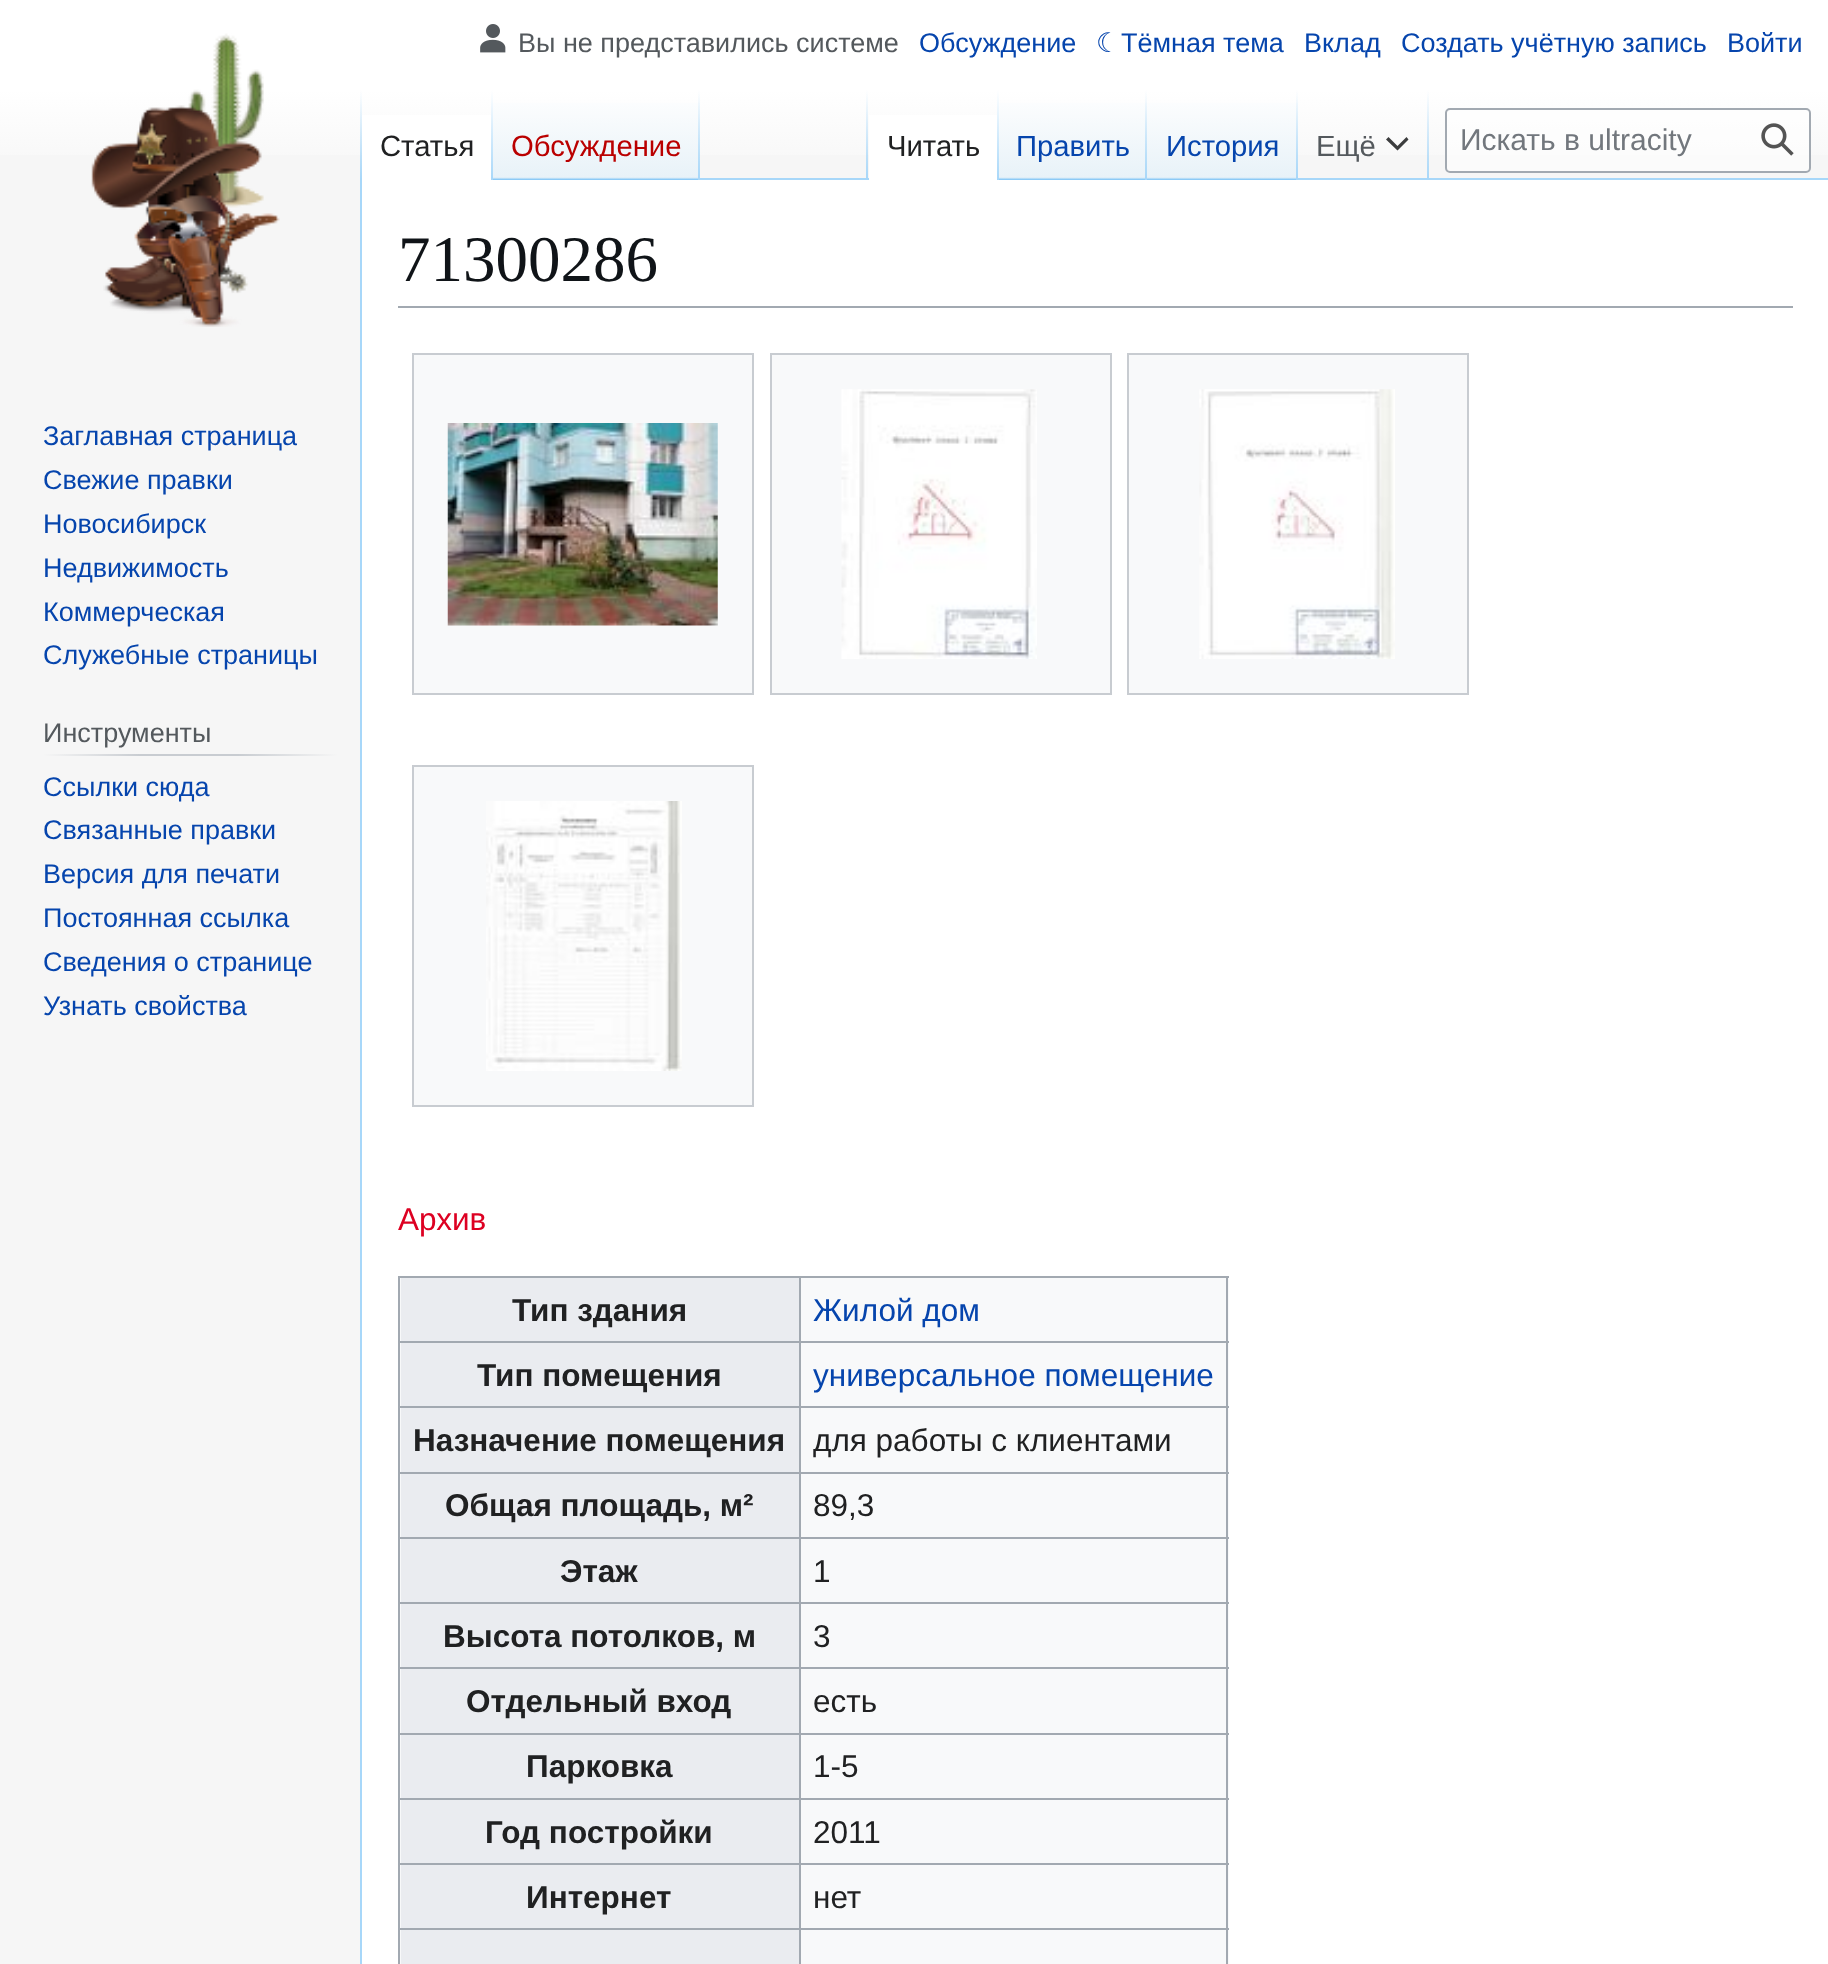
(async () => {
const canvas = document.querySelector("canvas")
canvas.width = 1828
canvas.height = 1964
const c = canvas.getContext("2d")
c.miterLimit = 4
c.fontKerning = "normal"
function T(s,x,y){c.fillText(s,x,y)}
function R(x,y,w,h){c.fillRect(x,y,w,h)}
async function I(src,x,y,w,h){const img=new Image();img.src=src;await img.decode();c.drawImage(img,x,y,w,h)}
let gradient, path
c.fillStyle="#f6f6f6"
R(0,0,1828,1964)
gradient = c.createLinearGradient(915,0,915,180)
gradient.addColorStop(.5,"#fff")
gradient.addColorStop(1,"#f6f6f6")
c.fillStyle = gradient
R(0,0,1828,155)
await I("1.png",480,24,26,29)
c.font="27px Liberation Sans"
c.fillStyle="#54595d"
T("Вы не представились системе",518,52)
c.fillStyle="#0645ad"
T("Обсуждение",919,52)
c.font="27px DejaVu Sans"
T("☾",1096,52)
c.font="27px Liberation Sans"
T("Тёмная тема",1121,52)
T("Вклад",1304,52)
T("Создать учётную запись",1401,52)
T("Войти",1727,52)
c.fillStyle="#a7d7f9"
R(360,178,2,1786)
gradient = c.createLinearGradient(361,90,361,180)
gradient.addColorStop(0,"#a7d7f900")
gradient.addColorStop(1,"#a7d7f9")
c.fillStyle = gradient
R(360,90,2,90)
c.fillStyle="#fff"
R(362,115,129,65)
gradient = c.createLinearGradient(492,90,492,180)
gradient.addColorStop(0,"#fff")
gradient.addColorStop(1,"#a7d7f9")
c.fillStyle = gradient
R(491,90,2,90)
c.font="29.25px Liberation Sans"
c.fillStyle="#202122"
T("Статья",380,156)
gradient = c.createLinearGradient(596,180,596,90)
gradient.addColorStop(0,"#77c1f6")
gradient.addColorStop(.03,"#e8f2f8")
gradient.addColorStop(1,"#fff")
c.fillStyle = gradient
R(493,103,207,77)
gradient = c.createLinearGradient(699,90,699,180)
gradient.addColorStop(0,"#a7d7f900")
gradient.addColorStop(1,"#a7d7f9")
c.fillStyle = gradient
R(698,90,2,90)
c.fillStyle="#ba0000"
T("Обсуждение",511,156)
c.fillStyle="#a7d7f9"
R(700,178,1128,2)
gradient = c.createLinearGradient(867,90,867,180)
gradient.addColorStop(0,"#a7d7f900")
gradient.addColorStop(1,"#a7d7f9")
c.fillStyle = gradient
R(866,90,2,90)
c.fillStyle="#fff"
R(869,115,128,65)
gradient = c.createLinearGradient(998,90,998,180)
gradient.addColorStop(0,"#fff")
gradient.addColorStop(1,"#a7d7f9")
c.fillStyle = gradient
R(997,90,2,90)
c.fillStyle="#202122"
T("Читать",887,156)
gradient = c.createLinearGradient(1073,180,1073,90)
gradient.addColorStop(0,"#77c1f6")
gradient.addColorStop(.03,"#e8f2f8")
gradient.addColorStop(1,"#fff")
c.fillStyle = gradient
R(999,103,149,77)
gradient = c.createLinearGradient(1146,90,1146,180)
gradient.addColorStop(0,"#a7d7f900")
gradient.addColorStop(1,"#a7d7f9")
c.fillStyle = gradient
R(1145,90,2,90)
c.fillStyle="#0645ad"
T("Править",1016,156)
gradient = c.createLinearGradient(1223,180,1223,90)
gradient.addColorStop(0,"#77c1f6")
gradient.addColorStop(.03,"#e8f2f8")
gradient.addColorStop(1,"#fff")
c.fillStyle = gradient
R(1148,103,150,77)
gradient = c.createLinearGradient(1297,90,1297,180)
gradient.addColorStop(0,"#a7d7f900")
gradient.addColorStop(1,"#a7d7f9")
c.fillStyle = gradient
R(1296,90,2,90)
c.fillStyle="#0645ad"
T("История",1166,156)
gradient = c.createLinearGradient(1428,90,1428,180)
gradient.addColorStop(0,"#a7d7f900")
gradient.addColorStop(1,"#a7d7f9")
c.fillStyle = gradient
R(1427,90,2,90)
c.fillStyle="#54595d"
T("Ещё",1316,156)
c.fillStyle="#3c3d3e"
path = new Path2D("M1408.5 139.5l-2-2.5l-9 9l-9-9l-2.5 2.5l11.5 11z")
c.fill(path)
c.fillStyle="#ffffff80"
c.beginPath()
c.roundRect(1446,109,364,63,4)
c.fill()
c.strokeStyle="#a2a9b1"
c.lineWidth=2
c.stroke()
c.font="30px Liberation Sans"
c.fillStyle="#72777d"
T("Искать в ultracity",1460,150)
await I("2.png",1761,123,33,33)
await I("3.png",91,33,189,294)
c.font="27px Liberation Sans"
c.fillStyle="#0645ad"
T("Заглавная страница",43,445)
T("Свежие правки",43,489)
T("Новосибирск",43,533)
T("Недвижимость",43,577)
T("Коммерческая",43,621)
T("Служебные страницы",43,664)
gradient = c.createLinearGradient(43,755,338,755)
gradient.addColorStop(0,"#f6f6f6")
gradient.addColorStop(.33,"#c8ccd1")
gradient.addColorStop(.66,"#c8ccd1")
gradient.addColorStop(1,"#f6f6f6")
c.fillStyle = gradient
R(43,754,295,2)
c.fillStyle="#54595d"
T("Инструменты",43,742)
c.fillStyle="#0645ad"
T("Ссылки сюда",43,796)
T("Связанные правки",43,839)
T("Версия для печати",43,883)
T("Постоянная ссылка",43,927)
T("Сведения о странице",43,971)
T("Узнать свойства",43,1015)
c.fillStyle="#fff"
R(362,180,1466,1784)
c.fillStyle="#a2a9b1"
R(398,306,1395,2)
c.font="65px Liberation Serif"
c.fillStyle="#101418"
T("71300286",398,281)
c.fillStyle="#f8f9fa"
c.beginPath()
c.rect(413,354,340,340)
c.fill()
c.strokeStyle="#c8ccd1"
c.stroke()
await I("4.png",447,423,271,203)
c.beginPath()
c.rect(771,354,340,340)
c.fill()
c.stroke()
await I("5.png",841,389,196,270)
c.beginPath()
c.rect(1128,354,340,340)
c.fill()
c.stroke()
await I("6.png",1199,389,196,270)
c.beginPath()
c.rect(413,766,340,340)
c.fill()
c.stroke()
await I("7.png",486,801,196,270)
c.font="31.5px Liberation Sans"
c.fillStyle="#d02"
T("Архив",398,1230)
c.fillStyle="#f8f9fa"
R(400,1278,829,686)
c.fillStyle="#a2a9b1"
R(398,1276,831,2)
R(1226,1276,2,688)
R(398,1276,2,688)
c.fillStyle="#eaecf0"
R(401,1278,398,63)
c.font="bold 31.5px Liberation Sans"
c.fillStyle="#202122"
T("Тип здания",512,1321)
c.fillStyle="#a2a9b1"
R(799,1341,430,2)
c.fillStyle="#eaecf0"
R(401,1343,398,129)
c.fillStyle="#a2a9b1"
R(799,1406,430,2)
R(799,1472,430,2)
R(799,1537,430,2)
R(799,1602,430,2)
c.fillStyle="#eaecf0"
R(401,1604,398,129)
c.fillStyle="#a2a9b1"
R(799,1667,430,2)
R(799,1733,430,2)
R(799,1798,430,2)
R(799,1863,430,2)
c.fillStyle="#eaecf0"
R(401,1865,398,99)
c.fillStyle="#a2a9b1"
R(799,1928,430,2)
R(799,1928,2,36)
R(398,1928,403,2)
R(799,1863,2,68)
R(398,1863,403,2)
R(799,1798,2,67)
R(398,1798,403,2)
R(799,1733,2,67)
R(398,1733,403,2)
R(799,1667,2,68)
R(398,1667,403,2)
R(799,1602,2,68)
R(398,1602,403,2)
R(799,1537,2,67)
R(398,1537,403,2)
R(799,1472,2,67)
R(398,1472,403,2)
R(799,1406,2,68)
R(398,1406,403,2)
R(799,1341,2,68)
R(398,1341,403,2)
R(799,1276,2,67)
c.font="31.5px Liberation Sans"
c.fillStyle="#0645ad"
T("Жилой дом",813,1321)
c.font="bold 31.5px Liberation Sans"
c.fillStyle="#202122"
T("Тип помещения",477,1386)
c.font="31.5px Liberation Sans"
c.fillStyle="#0645ad"
T("универсальное помещение",813,1386)
c.font="bold 31.5px Liberation Sans"
c.fillStyle="#202122"
T("Назначение помещения",413,1451)
c.font="31.5px Liberation Sans"
T("для работы с клиентами",813,1451)
c.fillStyle="#eaecf0"
R(401,1474,398,63)
c.font="bold 31.5px Liberation Sans"
c.fillStyle="#202122"
T("Общая площадь, м²",445,1516)
c.font="31.5px Liberation Sans"
T("89,3",813,1516)
c.fillStyle="#eaecf0"
R(401,1539,398,63)
c.font="bold 31.5px Liberation Sans"
c.fillStyle="#202122"
T("Этаж",560,1582)
c.font="31.5px Liberation Sans"
T("1",813,1582)
c.font="bold 31.5px Liberation Sans"
T("Высота потолков, м",443,1647)
c.font="31.5px Liberation Sans"
T("3",813,1647)
c.font="bold 31.5px Liberation Sans"
T("Отдельный вход",466,1712)
c.font="31.5px Liberation Sans"
T("есть",813,1712)
c.fillStyle="#eaecf0"
R(401,1735,398,63)
c.font="bold 31.5px Liberation Sans"
c.fillStyle="#202122"
T("Парковка",526,1777)
c.font="31.5px Liberation Sans"
T("1-5",813,1777)
c.fillStyle="#eaecf0"
R(401,1800,398,63)
c.font="bold 31.5px Liberation Sans"
c.fillStyle="#202122"
T("Год постройки",485,1843)
c.font="31.5px Liberation Sans"
T("2011",813,1843)
c.font="bold 31.5px Liberation Sans"
T("Интернет",526,1908)
c.font="31.5px Liberation Sans"
T("нет",813,1908)
})()
